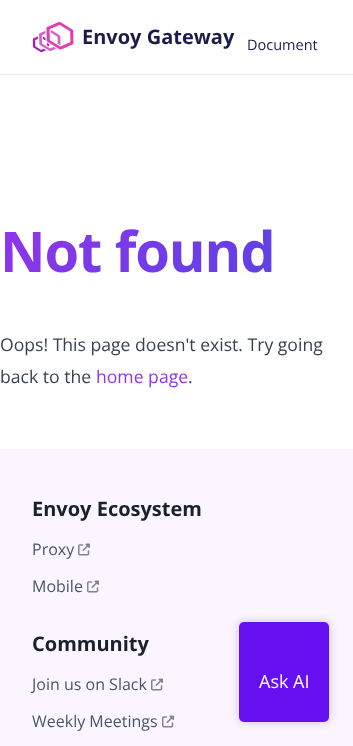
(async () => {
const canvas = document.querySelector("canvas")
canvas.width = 353
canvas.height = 746
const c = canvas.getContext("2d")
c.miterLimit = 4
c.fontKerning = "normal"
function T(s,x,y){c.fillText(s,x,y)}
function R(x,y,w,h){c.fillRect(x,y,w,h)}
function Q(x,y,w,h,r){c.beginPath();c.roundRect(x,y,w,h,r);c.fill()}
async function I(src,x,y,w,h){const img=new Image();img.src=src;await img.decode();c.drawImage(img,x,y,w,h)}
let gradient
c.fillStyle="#fff"
R(0,0,353,746)
c.fillStyle="#e9e8ff"
R(0,74,353,1)
await I("1.png",32,21,42,32)
c.font="bold 20px Open Sans"
c.fillStyle="#1e1b4b"
T("Envoy Gateway",82,44)
c.font="14.5px Open Sans"
T("Document",247,50)
c.letterSpacing="-1.1px"
c.font="bold 56px Open Sans"
gradient = c.createLinearGradient(69,142,284,358)
gradient.addColorStop(0,"#9333ea")
gradient.addColorStop(1,"#4f46e5")
c.fillStyle = gradient
T("Not found",0,272)
c.letterSpacing="0px"
c.font="17.6px Open Sans"
c.fillStyle="#374151"
T("Oops! This page doesn't exist. Try going",0,351)
T("back to the",0,383)
c.fillStyle="#9333ea"
T("home page",96,383)
c.fillStyle="#374151"
T(".",188,383)
c.fillStyle="#faf5ff"
R(0,449,353,297)
c.font="bold 20px Open Sans"
c.fillStyle="#1a202c"
T("Envoy Ecosystem",32,516)
c.font="16px Open Sans"
c.fillStyle="#4a5568"
T("Proxy",32,555)
await I("2.png",78,543,12,13)
T("Mobile",32,592)
await I("2.png",87,580,12,13)
c.font="bold 20px Open Sans"
c.fillStyle="#1a202c"
T("Community",32,651)
c.font="16px Open Sans"
c.fillStyle="#4a5568"
T("Join us on Slack",32,690)
await I("2.png",151,678,12,13)
T("Weekly Meetings",32,727)
await I("2.png",162,715,12,13)
c.fillStyle="#00000033"
c.filter="blur(5px)"
c.beginPath()
c.roundRect(239,622,90,100,5)
c.fill()
c.filter="none"
c.fillStyle="#6610f2"
Q(239,622,90,100,5)
c.font="18px Open Sans"
c.fillStyle="#fff"
T("Ask AI",259,688)
})()
